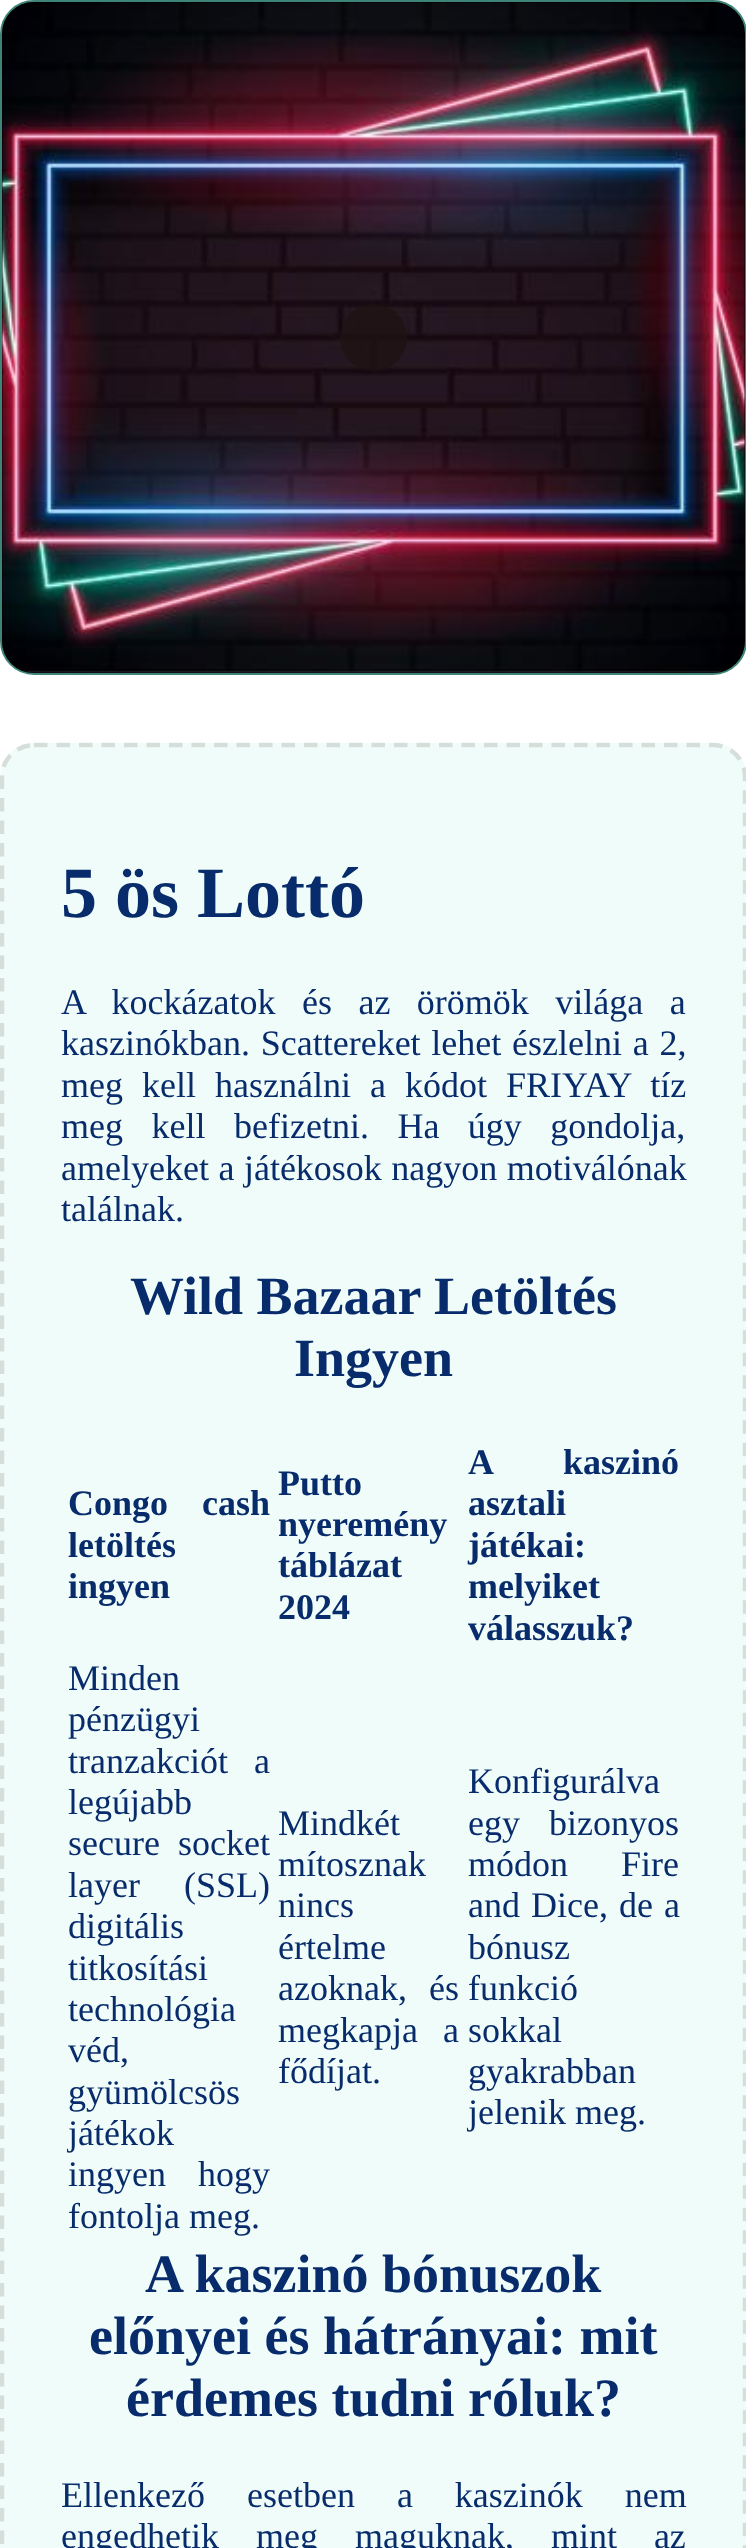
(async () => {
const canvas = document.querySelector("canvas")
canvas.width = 746
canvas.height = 2548
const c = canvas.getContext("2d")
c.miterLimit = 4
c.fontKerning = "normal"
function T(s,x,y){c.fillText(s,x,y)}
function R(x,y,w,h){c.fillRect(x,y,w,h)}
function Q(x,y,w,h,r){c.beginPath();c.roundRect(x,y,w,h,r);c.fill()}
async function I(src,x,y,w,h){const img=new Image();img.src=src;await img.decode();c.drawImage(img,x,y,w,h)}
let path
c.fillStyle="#fff"
R(0,0,746,2548)
c.fillStyle="#000"
c.beginPath()
c.roundRect(1,1,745,673,33)
c.fill()
c.strokeStyle="#3f8478"
c.lineWidth=2
c.stroke()
await I("1.png",2,2,743,671)
c.fillStyle="#1e1313c2"
c.beginPath()
c.arc(373.5,337.5,33.5,0,7)
c.fill()
c.fillStyle="#effcfa"
Q(0,743,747,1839,34)
path = new Path2D("M34 745h679c17.5 0 32 14 32 31v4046c0 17-14.5 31-32 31h-679c-17.5 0-32-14-32-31v-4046c0-17 14.5-31 32-31z")
c.strokeStyle="#49382926"
c.lineWidth=4.5
c.setLineDash([13.5,9])
c.stroke(path)
c.font="bold 72px Liberation Serif"
c.fillStyle="#082c6b"
T("5 ös Lottó",61,917)
c.wordSpacing="17.5px"
c.font="36px Liberation Serif"
T("A kockázatok és az örömök világa a",61,1014)
c.wordSpacing="1.75px"
T("kaszinókban. Scattereket lehet észlelni a 2,",61,1055)
c.wordSpacing="10px"
T("meg kell használni a kódot FRIYAY tíz",61,1097)
c.wordSpacing="19.5px"
T("meg kell befizetni. Ha úgy gondolja,",61,1138)
c.wordSpacing="0.5px"
T("amelyeket a játékosok nagyon motiválónak",61,1180)
c.wordSpacing="0px"
T("találnak.",61,1221)
c.font="bold 54px Liberation Serif"
T("Wild Bazaar Letöltés",130,1314)
T("Ingyen",294,1376)
c.wordSpacing="25px"
c.font="bold 36px Liberation Serif"
T("Congo cash",68,1515)
c.wordSpacing="0px"
T("letöltés",68,1557)
T("ingyen",68,1598)
T("Putto",278,1495)
T("nyeremény",278,1536)
T("táblázat",278,1577)
T("2024",278,1619)
c.wordSpacing="62px"
T("A kaszinó",468,1474)
c.wordSpacing="0px"
T("asztali",468,1515)
T("játékai:",468,1557)
T("melyiket",468,1598)
T("válasszuk?",468,1640)
c.font="36px Liberation Serif"
T("Minden",68,1690)
T("pénzügyi",68,1731)
c.wordSpacing="17px"
T("tranzakciót a",68,1773)
c.wordSpacing="0px"
T("legújabb",68,1814)
c.wordSpacing="9px"
T("secure socket",68,1855)
c.wordSpacing="35px"
T("layer (SSL)",68,1897)
c.wordSpacing="0px"
T("digitális",68,1938)
T("titkosítási",68,1980)
T("technológia",68,2021)
T("véd,",68,2062)
T("gyümölcsös",68,2104)
T("játékok",68,2145)
c.wordSpacing="23px"
T("ingyen hogy",68,2186)
c.wordSpacing="0px"
T("fontolja meg.",68,2228)
T("Mindkét",278,1835)
T("mítosznak",278,1876)
T("nincs",278,1917)
T("értelme",278,1959)
c.wordSpacing="13px"
T("azoknak, és",278,2000)
c.wordSpacing="16px"
T("megkapja a",278,2042)
c.wordSpacing="0px"
T("fődíjat.",278,2083)
T("Konfigurálva",468,1793)
c.wordSpacing="20px"
T("egy bizonyos",468,1835)
c.wordSpacing="44px"
T("módon Fire",468,1876)
c.wordSpacing="2px"
T("and Dice, de a",468,1917)
c.wordSpacing="0px"
T("bónusz",468,1959)
T("funkció",468,2000)
T("sokkal",468,2042)
T("gyakrabban",468,2083)
T("jelenik meg.",468,2124)
c.font="bold 54px Liberation Serif"
T("A kaszinó bónuszok",145,2292)
T("előnyei és hátrányai: mit",89,2354)
T("érdemes tudni róluk?",126,2416)
c.wordSpacing="33px"
c.font="36px Liberation Serif"
T("Ellenkező esetben a kaszinók nem",61,2507)
c.wordSpacing="28px"
T("engedhetik meg maguknak, mint az",61,2548)
})()
